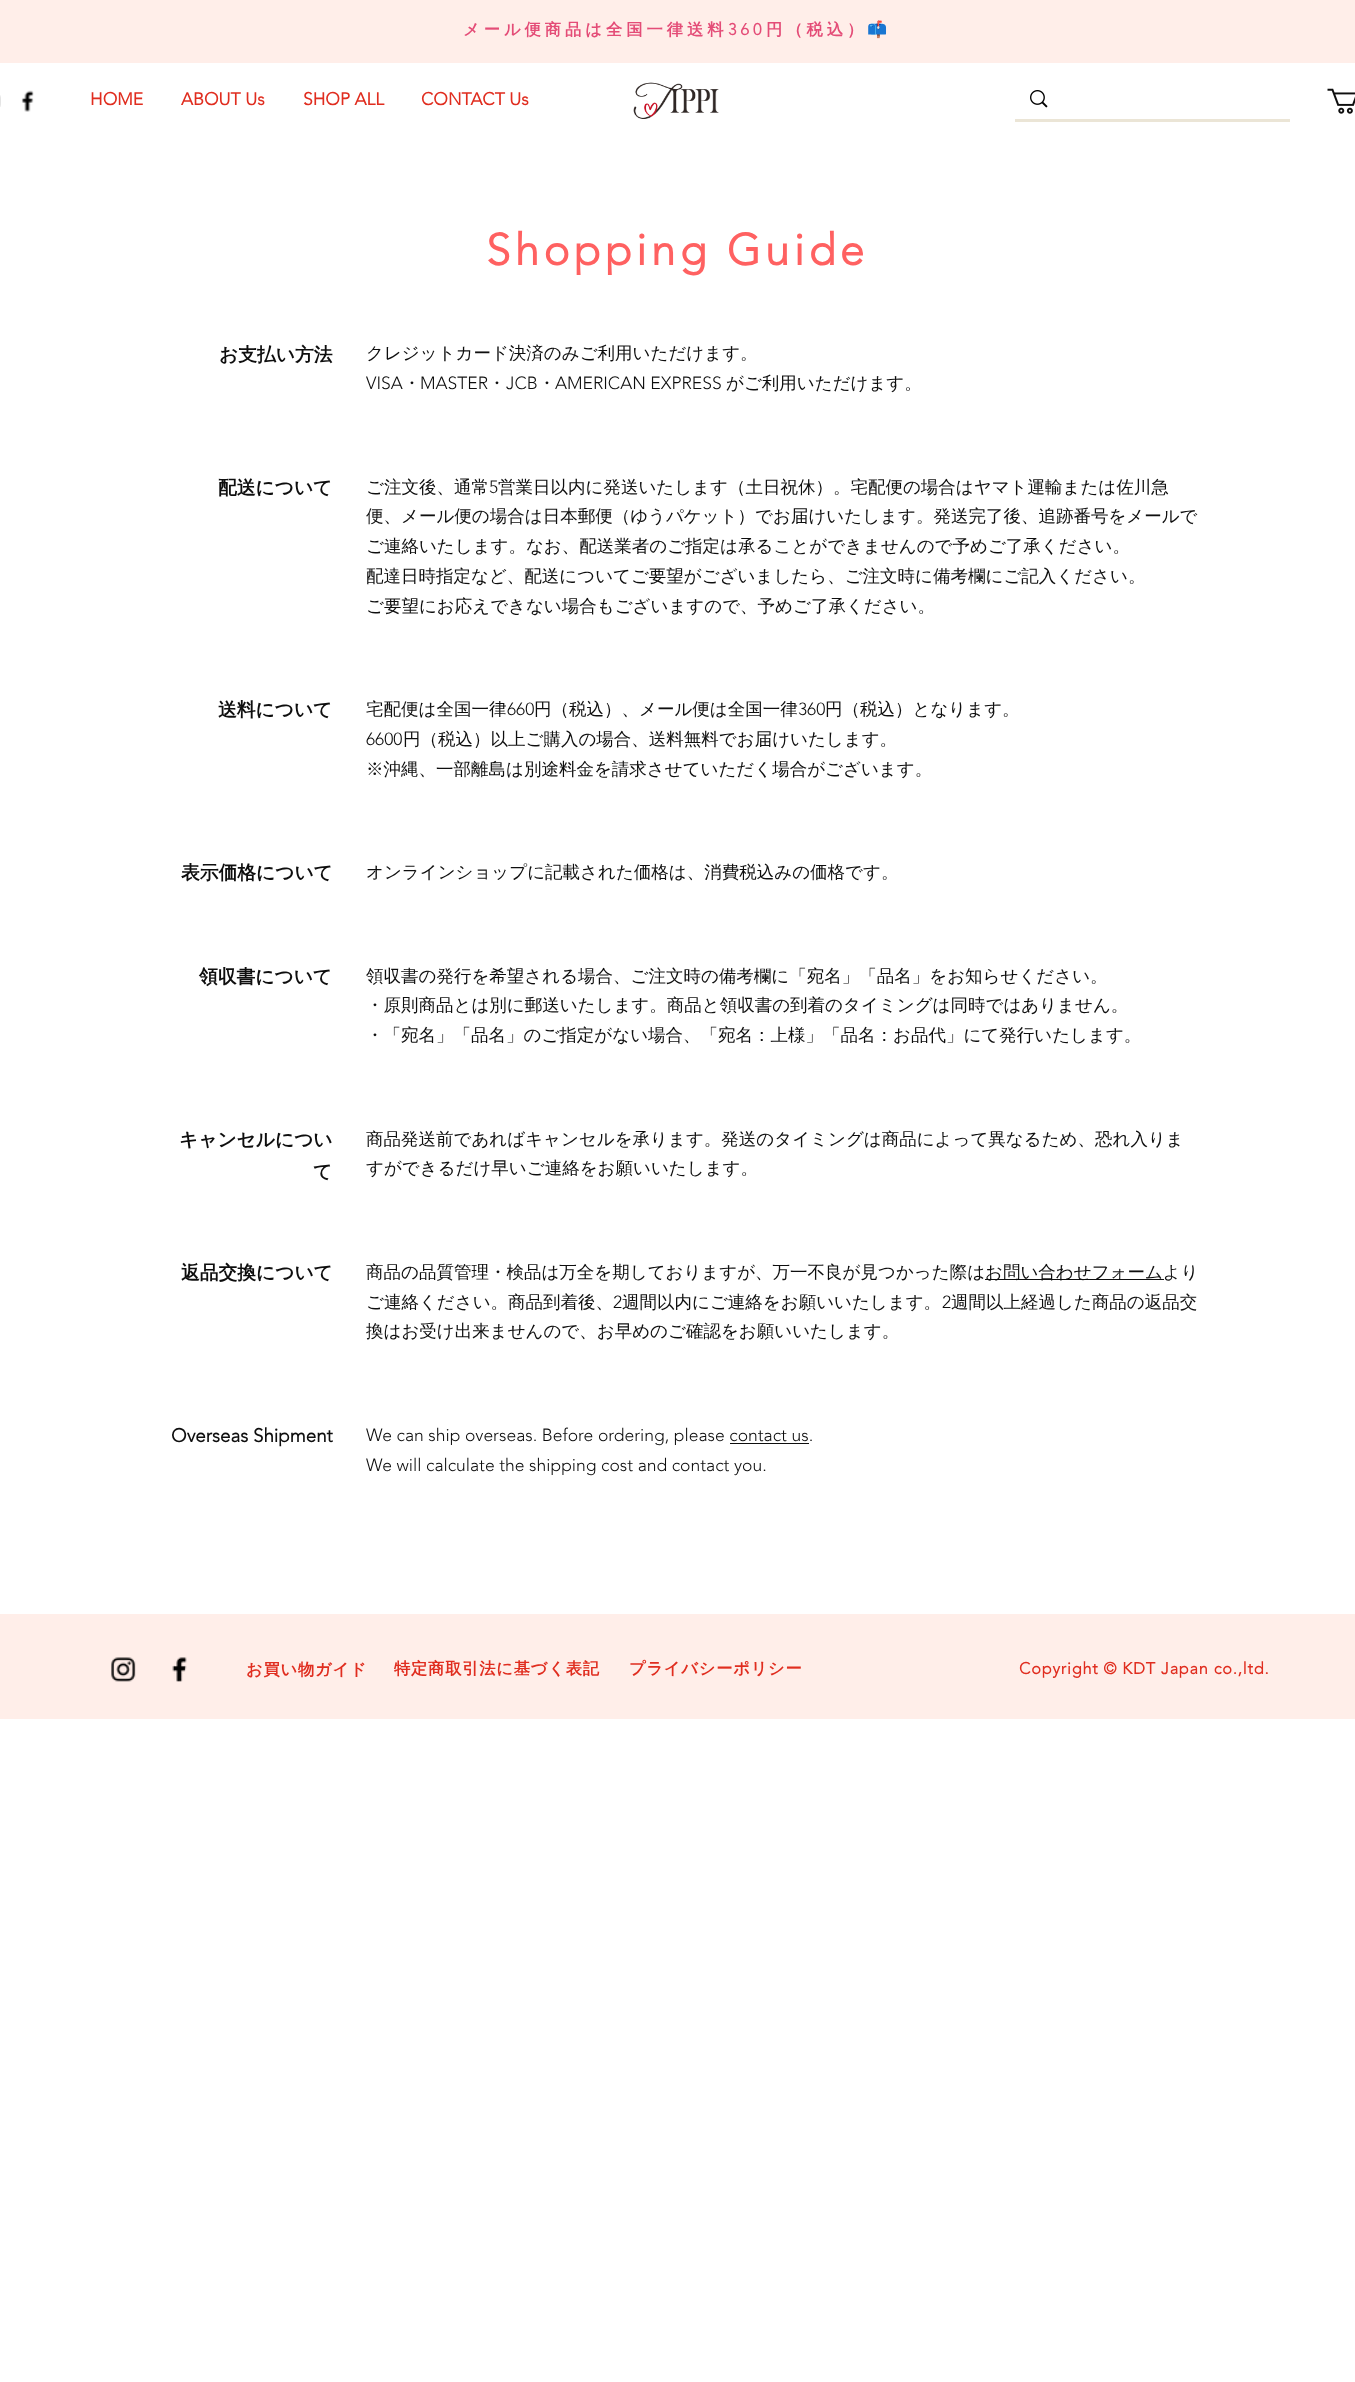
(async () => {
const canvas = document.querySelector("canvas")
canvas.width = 1355
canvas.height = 2382
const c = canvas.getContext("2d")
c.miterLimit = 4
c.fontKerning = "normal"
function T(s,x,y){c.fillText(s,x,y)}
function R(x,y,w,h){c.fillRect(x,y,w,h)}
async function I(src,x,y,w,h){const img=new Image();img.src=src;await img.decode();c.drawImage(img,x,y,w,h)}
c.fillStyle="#fff"
R(0,0,1355,2382)
c.fillStyle="#ffeee9"
R(0,0,1355,63)
c.letterSpacing="4px"
c.font="bold 16.25px WenQuanYi Zen Hei"
c.fillStyle="#e44c77"
T("メール便商品は全国一律送料",463,35)
c.font="bold 16.25px 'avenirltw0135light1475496'"
T("360",728,35)
c.font="bold 16.25px WenQuanYi Zen Hei"
T("円（税込）",766,35)
c.font="bold 16.25px Noto Color Emoji"
T("📫",867,35)
await I("1.png",0,95,1,12)
await I("2.png",21,90,13,22)
c.letterSpacing="0px"
c.font="bold 17.5px 'avenirltw0135light1475496'"
c.fillStyle="#e02d1f"
T("HOME",90,105)
T("ABOUT Us",181,105)
T("SHOP ALL",303,105)
T("CONTACT Us",421,105)
await I("3.png",633,82,86,37)
c.fillStyle="#ebe5d6"
R(1015,119,275,3)
await I("4.png",1030,90,18,18)
await I("5.png",1327,88,28,26)
c.letterSpacing="4.4px"
c.font="bold 43.75px 'avenirltw0135light1475496'"
c.fillStyle="#ff6161"
T("Shopping Guide",486,265)
c.letterSpacing="0px"
c.font="bold 18.75px WenQuanYi Zen Hei"
c.fillStyle="#0e0e0e"
T("お支払い方法",219,361)
c.font="500 17.5px WenQuanYi Zen Hei"
T("クレジットカード決済のみご利用いただけます。",366,359)
c.font="300 17.5px 'avenirltw0135light1475496'"
T("VISA",366,389)
c.font="500 17.5px WenQuanYi Zen Hei"
T("・",403,389)
c.font="300 17.5px 'avenirltw0135light1475496'"
T("MASTER",420,389)
c.font="500 17.5px WenQuanYi Zen Hei"
T("・",488,389)
c.font="300 17.5px 'avenirltw0135light1475496'"
T("JCB",506,389)
c.font="500 17.5px WenQuanYi Zen Hei"
T("・",538,389)
c.font="300 17.5px 'avenirltw0135light1475496'"
T("AMERICAN EXPRESS",555,389)
c.font="500 17.5px WenQuanYi Zen Hei"
T("がご利用いただけます。",726,389)
c.font="bold 18.75px WenQuanYi Zen Hei"
T("配送について",218,494)
c.font="500 17.5px WenQuanYi Zen Hei"
T("ご注文後、通常",366,493)
c.font="300 17.5px 'avenirltw0135light1475496'"
T("5",489,493)
c.font="500 17.5px WenQuanYi Zen Hei"
T("営業日以内に発送いたします（土日祝休）。宅配便の場合はヤマト運輸または佐川急",498,493)
T("便、メール便の場合は日本郵便（ゆうパケット）でお届けいたします。発送完了後、追跡番号をメールで",366,522)
T("ご連絡いたします。なお、配送業者のご指定は承ることができませんので予めご了承ください。",366,552)
T("配達日時指定など、配送についてご要望がございましたら、ご注文時に備考欄にご記入ください。",366,582)
T("ご要望にお応えできない場合もございますので、予めご了承ください。",366,612)
c.font="bold 18.75px WenQuanYi Zen Hei"
T("送料について",218,716)
c.font="500 17.5px WenQuanYi Zen Hei"
T("宅配便は全国一律",366,715)
c.font="300 17.5px 'avenirltw0135light1475496'"
T("660",507,715)
c.font="500 17.5px WenQuanYi Zen Hei"
T("円（税込）、メール便は全国一律",534,715)
c.font="300 17.5px 'avenirltw0135light1475496'"
T("360",798,715)
c.font="500 17.5px WenQuanYi Zen Hei"
T("円（税込）となります。",825,715)
c.font="300 17.5px 'avenirltw0135light1475496'"
T("6600",366,745)
c.font="500 17.5px WenQuanYi Zen Hei"
T("円（税込）以上ご購入の場合、送料無料でお届けいたします。",403,745)
T("※沖縄、一部離島は別途料金を請求させていただく場合がございます。",366,775)
c.font="bold 18.75px WenQuanYi Zen Hei"
T("表示価格について",181,879)
c.font="500 17.5px WenQuanYi Zen Hei"
T("オンラインショップに記載された価格は、消費税込みの価格です。",366,878)
c.font="bold 18.75px WenQuanYi Zen Hei"
T("領収書について",199,983)
c.font="500 17.5px WenQuanYi Zen Hei"
T("領収書の発行を希望される場合、ご注文時の備考欄に「宛名」「品名」をお知らせください。",366,982)
T("・原則商品とは別に郵送いたします。商品と領収書の到着のタイミングは同時ではありません。",366,1011)
T("・「宛名」「品名」のご指定がない場合、「宛名：上様」「品名：お品代」にて発行いたします。",366,1041)
c.font="bold 18.75px WenQuanYi Zen Hei"
T("キャンセルについ",179,1146)
T("て",313,1178)
c.font="500 17.5px WenQuanYi Zen Hei"
T("商品発送前であればキャンセルを承ります。発送のタイミングは商品によって異なるため、恐れ入りま",366,1145)
T("すができるだけ早いご連絡をお願いいたします。",366,1174)
c.font="bold 18.75px WenQuanYi Zen Hei"
T("返品交換について",181,1279)
c.font="500 17.5px WenQuanYi Zen Hei"
T("商品の品質管理・検品は万全を期しておりますが、万一不良が見つかった際は",366,1278)
R(985,1279,179,1)
T("お問い合わせフォームより",985,1278)
T("ご連絡ください。商品到着後、",366,1308)
c.font="300 17.5px 'avenirltw0135light1475496'"
T("2",613,1308)
c.font="500 17.5px WenQuanYi Zen Hei"
T("週間以内にご連絡をお願いいたします。",622,1308)
c.font="300 17.5px 'avenirltw0135light1475496'"
T("2",942,1308)
c.font="500 17.5px WenQuanYi Zen Hei"
T("週間以上経過した商品の返品交",951,1308)
T("換はお受け出来ませんので、お早めのご確認をお願いいたします。",366,1337)
c.font="bold 18.75px 'avenirltw0135light1475496'"
T("Overseas Shipment",171,1442)
c.font="300 17.5px 'avenirltw0135light1475496'"
T("We can ship overseas. Before ordering, please contact us.",366,1441)
R(730,1443,79,1)
T("We will calculate the shipping cost and contact you.",366,1471)
c.fillStyle="#ffeee9"
R(0,1614,1355,105)
await I("6.png",111,1657,25,25)
await I("7.png",172,1657,15,25)
c.letterSpacing="0.8px"
c.font="bold 16.25px WenQuanYi Zen Hei"
c.fillStyle="#e02d1f"
T("お買い物ガイド",246,1675)
T("特定商取引法に基づく表記",394,1674)
T("プライバシーポリシー",629,1674)
c.font="bold 16.25px 'avenirltw0135light1475496'"
T("Copyright © KDT Japan co.,ltd.",1019,1674)
})()
